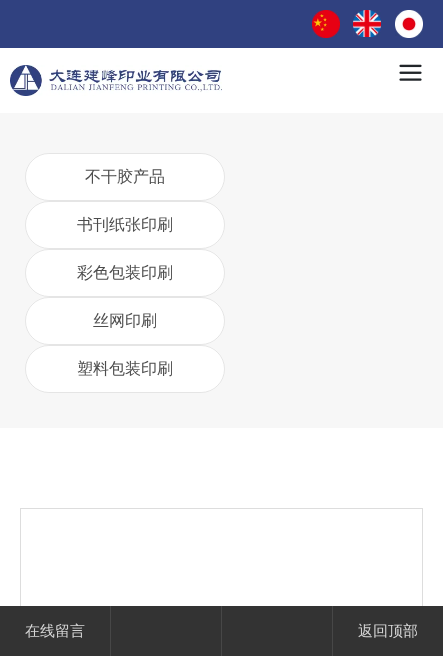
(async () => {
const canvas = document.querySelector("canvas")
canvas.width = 443
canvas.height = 656
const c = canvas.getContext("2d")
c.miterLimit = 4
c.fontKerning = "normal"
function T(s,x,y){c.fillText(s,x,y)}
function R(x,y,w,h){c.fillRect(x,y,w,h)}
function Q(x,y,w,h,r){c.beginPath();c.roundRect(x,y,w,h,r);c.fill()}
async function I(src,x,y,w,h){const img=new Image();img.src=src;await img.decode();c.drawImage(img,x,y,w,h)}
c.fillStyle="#fff"
R(0,0,443,656)
c.fillStyle="#304180"
R(0,0,443,48)
await I("1.png",312,10,28,28)
await I("2.png",353,10,28,27)
await I("3.png",395,10,28,28)
await I("4.png",10,65,212,31)
await I("5.png",399,64,23,17)
c.fillStyle="#f7f7f7"
R(0,113,443,315)
c.fillStyle="#fff"
Q(25,153,200,48,24)
c.beginPath()
c.roundRect(25.5,153.5,199,47,23.5)
c.strokeStyle="#0000001a"
c.stroke()
c.font="500 16px WenQuanYi Zen Hei"
c.fillStyle="#4d4d4d"
T("不干胶产品",85,182)
c.fillStyle="#fff"
Q(25,201,200,48,24)
c.beginPath()
c.roundRect(25.5,201.5,199,47,23.5)
c.stroke()
c.fillStyle="#4d4d4d"
T("书刊纸张印刷",77,230)
c.fillStyle="#fff"
Q(25,249,200,48,24)
c.beginPath()
c.roundRect(25.5,249.5,199,47,23.5)
c.stroke()
c.fillStyle="#4d4d4d"
T("彩色包装印刷",77,278)
c.fillStyle="#fff"
Q(25,297,200,48,24)
c.beginPath()
c.roundRect(25.5,297.5,199,47,23.5)
c.stroke()
c.fillStyle="#4d4d4d"
T("丝网印刷",93,326)
c.fillStyle="#fff"
Q(25,345,200,48,24)
c.beginPath()
c.roundRect(25.5,345.5,199,47,23.5)
c.stroke()
c.fillStyle="#4d4d4d"
T("塑料包装印刷",77,374)
c.strokeStyle="#ddd"
c.strokeRect(20.5,508.5,402,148)
c.fillStyle="#333"
R(0,606,443,50)
c.fillStyle="#474747"
R(110,606,1,50)
c.font="500 15px WenQuanYi Zen Hei"
c.fillStyle="#d6d6d6"
T("在线留言",25,636)
c.fillStyle="#474747"
R(221,606,1,50)
R(332,606,1,50)
c.fillStyle="#d6d6d6"
T("返回顶部",358,636)
})()
